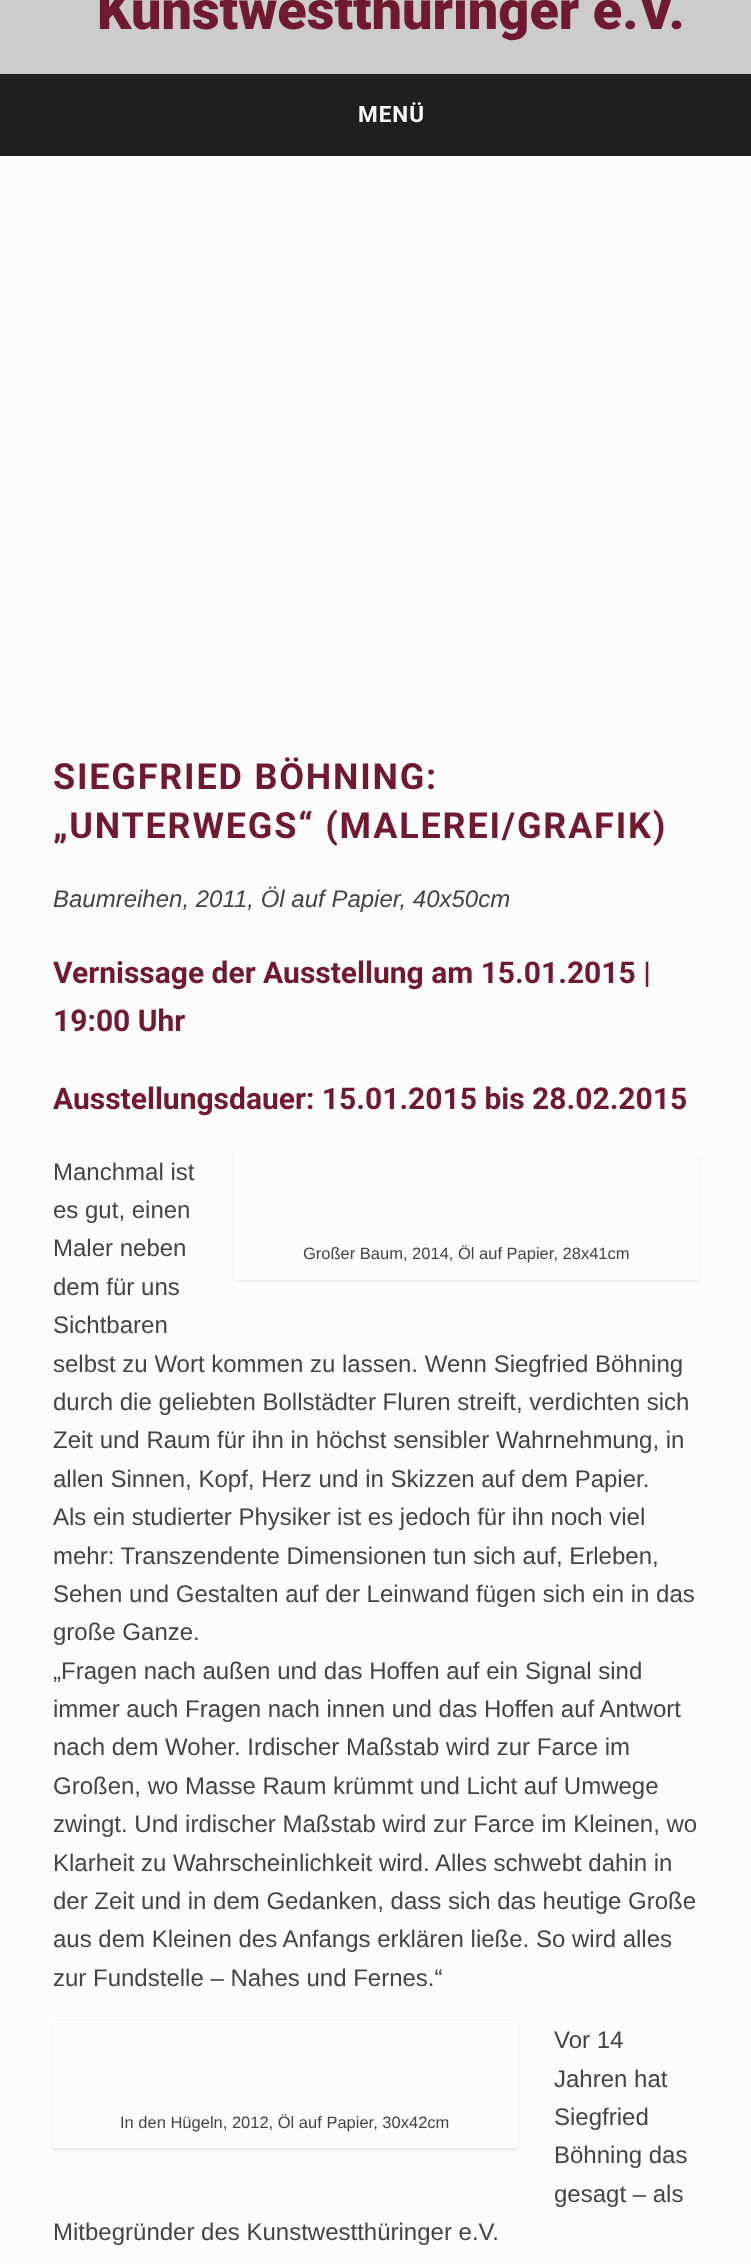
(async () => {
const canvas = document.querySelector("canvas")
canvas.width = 751
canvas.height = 2264
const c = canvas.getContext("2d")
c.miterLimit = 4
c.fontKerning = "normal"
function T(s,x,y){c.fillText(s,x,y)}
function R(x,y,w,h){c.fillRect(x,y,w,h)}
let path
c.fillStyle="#ccc"
R(0,0,751,2264)
c.font="900 54px Roboto"
c.fillStyle="#701a32"
T("Kunstwestthüringer e.V.",97,29)
c.fillStyle="#1f1f1f"
R(0,74,751,82)
c.letterSpacing="1px"
c.font="bold 22.5px Roboto"
c.fillStyle="#fafafa"
T("MENÜ",358,122)
c.fillStyle="#fcfcfc"
R(0,156,751,2108)
c.letterSpacing="1.8px"
c.font="bold 36px Roboto"
c.fillStyle="#701a32"
T("SIEGFRIED BÖHNING:",53,789)
T("„UNTERWEGS“ (MALEREI/GRAFIK)",53,838)
c.letterSpacing="0px"
c.font="italic 24px Liberation Sans"
c.fillStyle="#444"
T("Baumreihen, 2011, Öl auf Papier, 40x50cm",53,907)
c.font="bold 30px Roboto"
c.fillStyle="#701a32"
T("Vernissage der Ausstellung am 15.01.2015 |",53,983)
T("19:00 Uhr",53,1031)
T("Ausstellungsdauer: 15.01.2015 bis 28.02.2015",53,1109)
c.font="24px Liberation Sans"
c.fillStyle="#444"
T("Manchmal ist",53,1180)
T("es gut, einen",53,1218)
T("Maler neben",53,1256)
T("dem für uns",53,1295)
T("Sichtbaren",53,1333)
T("selbst zu Wort kommen zu lassen. Wenn Siegfried Böhning",53,1372)
T("durch die geliebten Bollstädter Fluren streift, verdichten sich",53,1410)
T("Zeit und Raum für ihn in höchst sensibler Wahrnehmung, in",53,1448)
T("allen Sinnen, Kopf, Herz und in Skizzen auf dem Papier.",53,1487)
T("Als ein studierter Physiker ist es jedoch für ihn noch viel",53,1525)
T("mehr: Transzendente Dimensionen tun sich auf, Erleben,",53,1564)
T("Sehen und Gestalten auf der Leinwand fügen sich ein in das",53,1602)
T("große Ganze.",53,1640)
T("„Fragen nach außen und das Hoffen auf ein Signal sind",53,1679)
T("immer auch Fragen nach innen und das Hoffen auf Antwort",53,1717)
T("nach dem Woher. Irdischer Maßstab wird zur Farce im",53,1755)
T("Großen, wo Masse Raum krümmt und Licht auf Umwege",53,1794)
T("zwingt. Und irdischer Maßstab wird zur Farce im Kleinen, wo",53,1832)
T("Klarheit zu Wahrscheinlichkeit wird. Alles schwebt dahin in",53,1871)
T("der Zeit und in dem Gedanken, dass sich das heutige Große",53,1909)
T("aus dem Kleinen des Anfangs erklären ließe. So wird alles",53,1947)
T("zur Fundstelle – Nahes und Fernes.“",53,1986)
c.save()
path = new Path2D("M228 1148h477v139h-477zm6 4h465v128h-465z")
c.clip(path,"evenodd")
c.fillStyle="#00000017"
c.filter="blur(1.5px)"
c.beginPath()
c.rect(234,1154,465,127)
c.fill()
c.filter="none"
c.restore()
c.font="16.5px Liberation Sans"
T("Großer Baum, 2014, Öl auf Papier, 28x41cm",303,1259)
c.font="24px Liberation Sans"
T("Vor 14",554,2048)
T("Jahren hat",554,2087)
T("Siegfried",554,2125)
T("Böhning das",554,2163)
T("gesagt – als",554,2202)
T("Mitbegründer des Kunstwestthüringer e.V.",53,2240)
c.save()
path = new Path2D("M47 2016h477v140h-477zm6 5h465v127h-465z")
c.clip(path,"evenodd")
c.fillStyle="#00000017"
c.filter="blur(1.5px)"
c.beginPath()
c.rect(53,2022,465,128)
c.fill()
c.filter="none"
c.restore()
c.font="16.5px Liberation Sans"
T("In den Hügeln, 2012, Öl auf Papier, 30x42cm",120,2128)
})()
